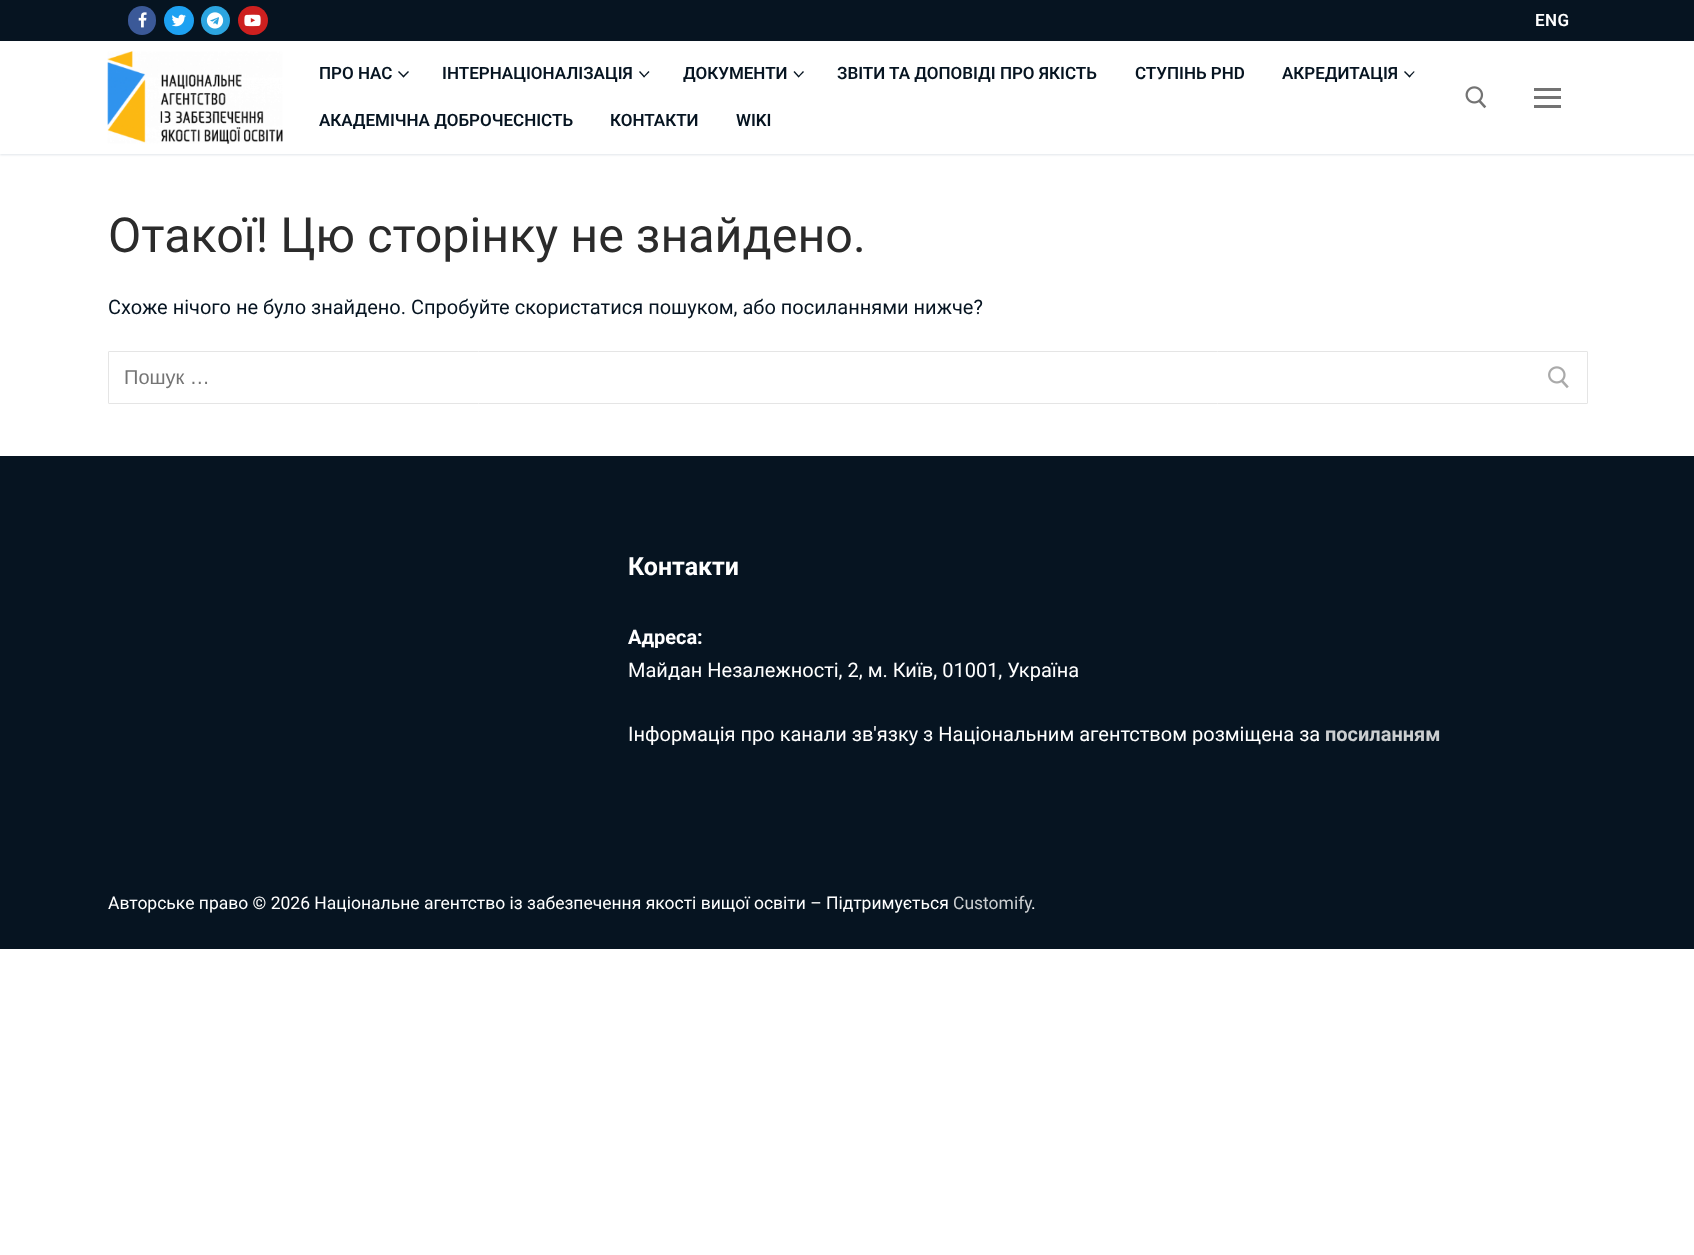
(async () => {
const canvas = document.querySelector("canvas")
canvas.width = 1694
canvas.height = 1255
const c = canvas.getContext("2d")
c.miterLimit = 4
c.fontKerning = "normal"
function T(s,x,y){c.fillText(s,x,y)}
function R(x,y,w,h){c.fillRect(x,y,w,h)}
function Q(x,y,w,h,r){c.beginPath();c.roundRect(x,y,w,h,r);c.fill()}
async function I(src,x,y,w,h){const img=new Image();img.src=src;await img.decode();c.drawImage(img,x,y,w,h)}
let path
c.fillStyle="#fff"
R(0,0,1694,1255)
c.fillStyle="#061421"
R(0,0,1694,41)
c.fillStyle="#3b5998"
Q(128,6,28,29,14)
await I("1.png",138,12,9,16)
c.fillStyle="#1da1f2"
Q(164,6,30,29,14.5)
await I("2.png",171,14,15,13)
c.fillStyle="#2ca5e0"
c.beginPath()
c.arc(215.5,20.5,14.5,0,7)
c.fill()
await I("3.png",206,12,18,17)
c.fillStyle="#cd201f"
Q(238,6,30,29,14.5)
await I("4.png",244,14,17,13)
c.letterSpacing="0.5px"
c.font="600 17px Roboto"
c.fillStyle="#fff"
T("ENG",1535,26)
c.fillStyle="#e1e5ea"
c.filter="blur(1px)"
c.beginPath()
c.rect(0,43,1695,112)
c.fill()
c.filter="none"
c.fillStyle="#fff"
R(0,42,1694,112)
await I("5.png",107,51,176,93)
c.letterSpacing="0px"
c.fillStyle="#061421"
T("ПРО НАС",319,79)
path = new Path2D("M403.5 77.5l-5.5-5.5l1-1l5.5 5.5z")
c.fill(path)
path = new Path2D("M403.5 77.5l-1-1l5.5-5.5l1 1z")
c.fill(path)
T("ІНТЕРНАЦІОНАЛІЗАЦІЯ",442,79)
path = new Path2D("M644 77.5l-5-5.5l1-1l5 5.5z")
c.fill(path)
path = new Path2D("M644 77.5l-.5-1l5-5.5l1 1z")
c.fill(path)
T("ДОКУМЕНТИ",683,79)
path = new Path2D("M798.5 77.5l-5-5.5l1-1l5 5.5z")
c.fill(path)
path = new Path2D("M798.5 77.5l-.5-1l5-5.5l1 1z")
c.fill(path)
T("ЗВІТИ ТА ДОПОВІДІ ПРО ЯКІСТЬ",837,79)
T("СТУПІНЬ PHD",1135,79)
T("АКРЕДИТАЦІЯ",1282,79)
path = new Path2D("M1409.5 77.5l-5.5-5.5l1-1l5.5 5.5z")
c.fill(path)
path = new Path2D("M1409.5 77.5l-1-1l5.5-5.5l.5 1z")
c.fill(path)
T("АКАДЕМІЧНА ДОБРОЧЕСНІСТЬ",319,126)
T("КОНТАКТИ",610,126)
T("WIKI",736,126)
await I("6.png",1465,86,22,23)
c.fillStyle="#737373"
R(1534,96,27,3)
R(1534,88,27,3)
R(1534,105,27,3)
c.font="48.4px Roboto"
c.fillStyle="#2b2b2b"
T("Отакої! Цю сторінку не знайдено.",108,252)
c.font="20px Roboto"
c.fillStyle="#061421"
T("Схоже нічого не було знайдено. Спробуйте скористатися пошуком, або посиланнями нижче?",108,314)
c.beginPath()
c.roundRect(108.5,351.5,1479,52,.5)
c.strokeStyle="#e5e5e5"
c.stroke()
c.font="20px Liberation Sans"
c.fillStyle="#757575"
T("Пошук …",124,384)
await I("7.png",1548,366,21,23)
c.fillStyle="#061421"
R(0,456,1694,493)
c.font="bold 25px Roboto"
c.fillStyle="#fff"
T("Контакти",628,575)
c.font="bold 20px Roboto"
T("Адреса:",628,644)
c.font="20px Roboto"
T("Майдан Незалежності, 2, м. Київ, 01001, Україна",628,677)
T("Інформація про канали зв'язку з Національним агентством розміщена за",628,741)
c.font="bold 20px Roboto"
c.fillStyle="#cbced0"
T("посиланням",1325,741)
c.font="17.5px Roboto"
c.fillStyle="#fff"
T("Авторське право © 2026 Національне агентство із забезпечення якості вищої освіти – Підтримується",108,909)
c.fillStyle="#cbced0"
T("Customify",953,909)
c.fillStyle="#fff"
T(".",1031,909)
})()
